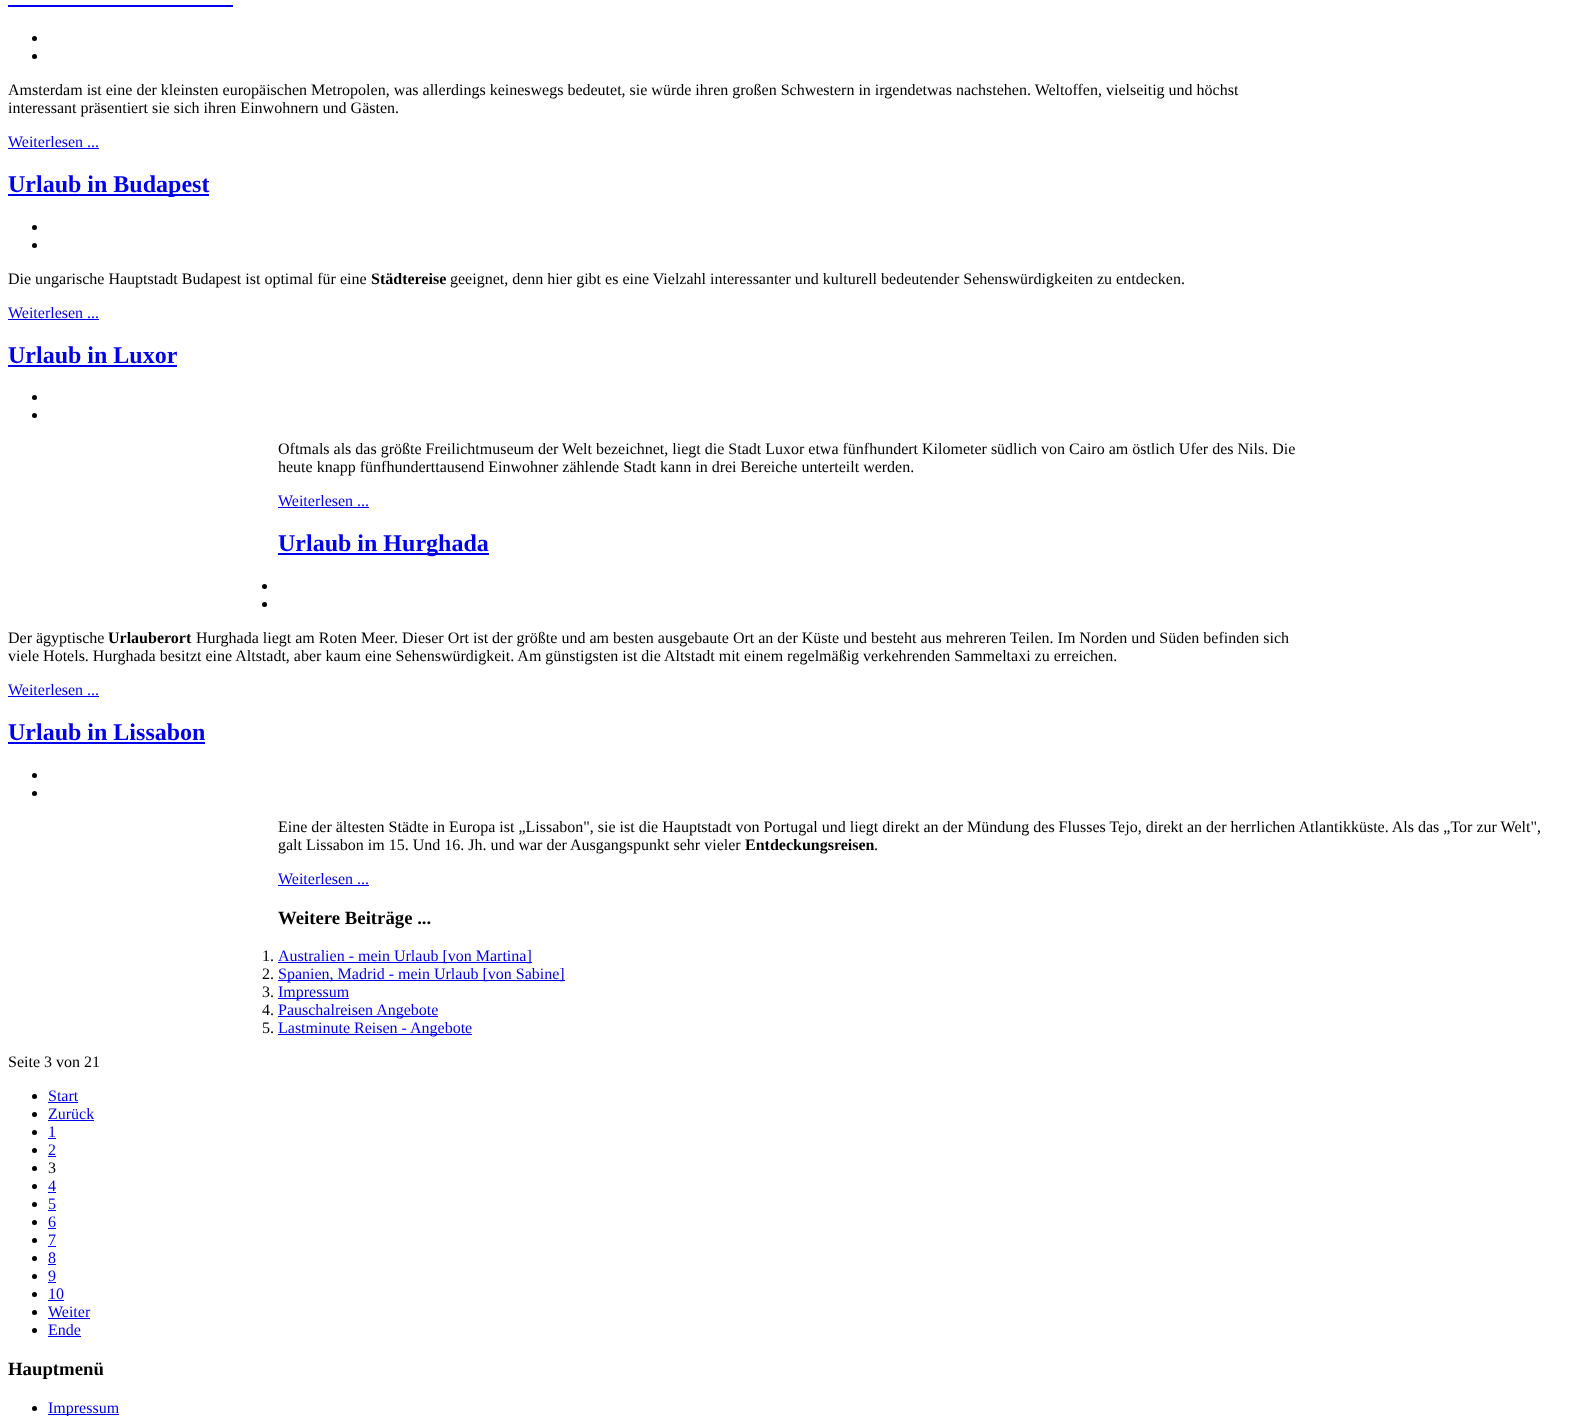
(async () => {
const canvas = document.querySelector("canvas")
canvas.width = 1576
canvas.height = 1416
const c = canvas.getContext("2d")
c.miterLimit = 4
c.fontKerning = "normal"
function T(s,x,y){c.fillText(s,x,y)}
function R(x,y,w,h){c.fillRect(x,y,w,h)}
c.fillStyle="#fff"
R(0,0,1576,1416)
c.fillStyle="#00e"
R(8,5,225,2)
c.fillStyle="#000"
c.beginPath()
c.arc(34.5,38.5,2.5,0,7)
c.fill()
c.beginPath()
c.arc(34.5,56.5,2.5,0,7)
c.fill()
c.font="16px Liberation Serif"
T("Amsterdam ist eine der kleinsten europäischen Metropolen, was allerdings keineswegs bedeutet, sie würde ihren großen Schwestern in irgendetwas nachstehen. Weltoffen, vielseitig und höchst",8,95)
T("interessant präsentiert sie sich ihren Einwohnern und Gästen.",8,113)
c.fillStyle="#00e"
T("Weiterlesen ...",8,147)
R(8,148,91,1)
R(8,194,201,2)
c.font="bold 24px Liberation Serif"
T("Urlaub in Budapest",8,192)
c.fillStyle="#000"
c.beginPath()
c.arc(34.5,227.5,2.5,0,7)
c.fill()
c.beginPath()
c.arc(34.5,245.5,2.5,0,7)
c.fill()
c.font="16px Liberation Serif"
T("Die ungarische Hauptstadt Budapest ist optimal für eine",8,284)
c.font="bold 16px Liberation Serif"
T("Städtereise",371,284)
c.font="16px Liberation Serif"
T("geeignet, denn hier gibt es eine Vielzahl interessanter und kulturell bedeutender Sehenswürdigkeiten zu entdecken.",450,284)
c.fillStyle="#00e"
T("Weiterlesen ...",8,318)
R(8,319,91,1)
c.font="bold 24px Liberation Serif"
T("Urlaub in Luxor",8,363)
R(8,365,169,2)
c.fillStyle="#000"
c.beginPath()
c.arc(34.5,397.5,2.5,0,7)
c.fill()
c.beginPath()
c.arc(34.5,415.5,2.5,0,7)
c.fill()
c.font="16px Liberation Serif"
T("Oftmals als das größte Freilichtmuseum der Welt bezeichnet, liegt die Stadt Luxor etwa fünfhundert Kilometer südlich von Cairo am östlich Ufer des Nils. Die",278,454)
T("heute knapp fünfhunderttausend Einwohner zählende Stadt kann in drei Bereiche unterteilt werden.",278,472)
c.fillStyle="#00e"
T("Weiterlesen ...",278,506)
R(278,507,91,1)
R(278,553,211,2)
c.font="bold 24px Liberation Serif"
T("Urlaub in Hurghada",278,551)
c.fillStyle="#000"
c.beginPath()
c.arc(264.5,586.5,2.5,0,7)
c.fill()
c.beginPath()
c.arc(264.5,604.5,2.5,0,7)
c.fill()
c.font="16px Liberation Serif"
T("Der ägyptische",8,643)
c.font="bold 16px Liberation Serif"
T("Urlauberort",108,643)
c.font="16px Liberation Serif"
T("Hurghada liegt am Roten Meer. Dieser Ort ist der größte und am besten ausgebaute Ort an der Küste und besteht aus mehreren Teilen. Im Norden und Süden befinden sich",196,643)
T("viele Hotels. Hurghada besitzt eine Altstadt, aber kaum eine Sehenswürdigkeit. Am günstigsten ist die Altstadt mit einem regelmäßig verkehrenden Sammeltaxi zu erreichen.",8,661)
c.fillStyle="#00e"
T("Weiterlesen ...",8,695)
R(8,696,91,1)
c.font="bold 24px Liberation Serif"
T("Urlaub in Lissabon",8,740)
R(8,742,197,2)
c.fillStyle="#000"
c.beginPath()
c.arc(34.5,775.5,2.5,0,7)
c.fill()
c.beginPath()
c.arc(34.5,793.5,2.5,0,7)
c.fill()
c.font="16px Liberation Serif"
T("Eine der ältesten Städte in Europa ist „Lissabon\", sie ist die Hauptstadt von Portugal und liegt direkt an der Mündung des Flusses Tejo, direkt an der herrlichen Atlantikküste. Als das „Tor zur Welt\",",278,832)
T("galt Lissabon im 15. Und 16. Jh. und war der Ausgangspunkt sehr vieler",278,850)
c.font="bold 16px Liberation Serif"
T("Entdeckungsreisen",745,850)
c.font="16px Liberation Serif"
T(".",874,850)
c.fillStyle="#00e"
T("Weiterlesen ...",278,884)
R(278,885,91,1)
c.font="bold 18.75px Liberation Serif"
c.fillStyle="#000"
T("Weitere Beiträge ...",278,924)
c.font="16px Liberation Serif"
T("1.",262,961)
c.fillStyle="#00e"
R(278,962,254,1)
T("Australien - mein Urlaub [von Martina]",278,961)
c.fillStyle="#000"
T("2.",262,979)
c.fillStyle="#00e"
R(278,980,287,1)
T("Spanien, Madrid - mein Urlaub [von Sabine]",278,979)
c.fillStyle="#000"
T("3.",262,997)
c.fillStyle="#00e"
R(278,998,71,1)
T("Impressum",278,997)
c.fillStyle="#000"
T("4.",262,1015)
c.fillStyle="#00e"
R(278,1016,160,1)
T("Pauschalreisen Angebote",278,1015)
c.fillStyle="#000"
T("5.",262,1033)
c.fillStyle="#00e"
R(278,1034,194,1)
T("Lastminute Reisen - Angebote",278,1033)
c.fillStyle="#000"
T("Seite 3 von 21",8,1067)
c.beginPath()
c.arc(34.5,1096.5,2.5,0,7)
c.fill()
c.fillStyle="#00e"
T("Start",48,1101)
R(48,1102,30,1)
c.fillStyle="#000"
c.beginPath()
c.arc(34.5,1114.5,2.5,0,7)
c.fill()
c.fillStyle="#00e"
T("Zurück",48,1119)
R(48,1120,46,1)
c.fillStyle="#000"
c.beginPath()
c.arc(34.5,1132.5,2.5,0,7)
c.fill()
c.fillStyle="#00e"
T("1",48,1137)
R(48,1138,8,1)
c.fillStyle="#000"
c.beginPath()
c.arc(34.5,1150.5,2.5,0,7)
c.fill()
c.fillStyle="#00e"
T("2",48,1155)
R(48,1156,8,1)
c.fillStyle="#000"
c.beginPath()
c.arc(34.5,1168.5,2.5,0,7)
c.fill()
T("3",48,1173)
c.beginPath()
c.arc(34.5,1186.5,2.5,0,7)
c.fill()
c.fillStyle="#00e"
T("4",48,1191)
R(48,1192,8,1)
c.fillStyle="#000"
c.beginPath()
c.arc(34.5,1204.5,2.5,0,7)
c.fill()
c.fillStyle="#00e"
T("5",48,1209)
R(48,1210,8,1)
c.fillStyle="#000"
c.beginPath()
c.arc(34.5,1222.5,2.5,0,7)
c.fill()
c.fillStyle="#00e"
T("6",48,1227)
R(48,1228,8,1)
c.fillStyle="#000"
c.beginPath()
c.arc(34.5,1240.5,2.5,0,7)
c.fill()
c.fillStyle="#00e"
T("7",48,1245)
R(48,1246,8,1)
c.fillStyle="#000"
c.beginPath()
c.arc(34.5,1258.5,2.5,0,7)
c.fill()
c.fillStyle="#00e"
T("8",48,1263)
R(48,1264,8,1)
c.fillStyle="#000"
c.beginPath()
c.arc(34.5,1276.5,2.5,0,7)
c.fill()
c.fillStyle="#00e"
T("9",48,1281)
R(48,1282,8,1)
c.fillStyle="#000"
c.beginPath()
c.arc(34.5,1294.5,2.5,0,7)
c.fill()
c.fillStyle="#00e"
T("10",48,1299)
R(48,1300,16,1)
c.fillStyle="#000"
c.beginPath()
c.arc(34.5,1312.5,2.5,0,7)
c.fill()
c.fillStyle="#00e"
T("Weiter",48,1317)
R(48,1318,42,1)
c.fillStyle="#000"
c.beginPath()
c.arc(34.5,1330.5,2.5,0,7)
c.fill()
c.fillStyle="#00e"
T("Ende",48,1335)
R(48,1336,33,1)
c.font="bold 18.75px Liberation Serif"
c.fillStyle="#000"
T("Hauptmenü",8,1375)
c.beginPath()
c.arc(34.5,1408.5,2.5,0,7)
c.fill()
c.fillStyle="#00e"
R(48,1414,71,1)
c.font="16px Liberation Serif"
T("Impressum",48,1413)
})()
